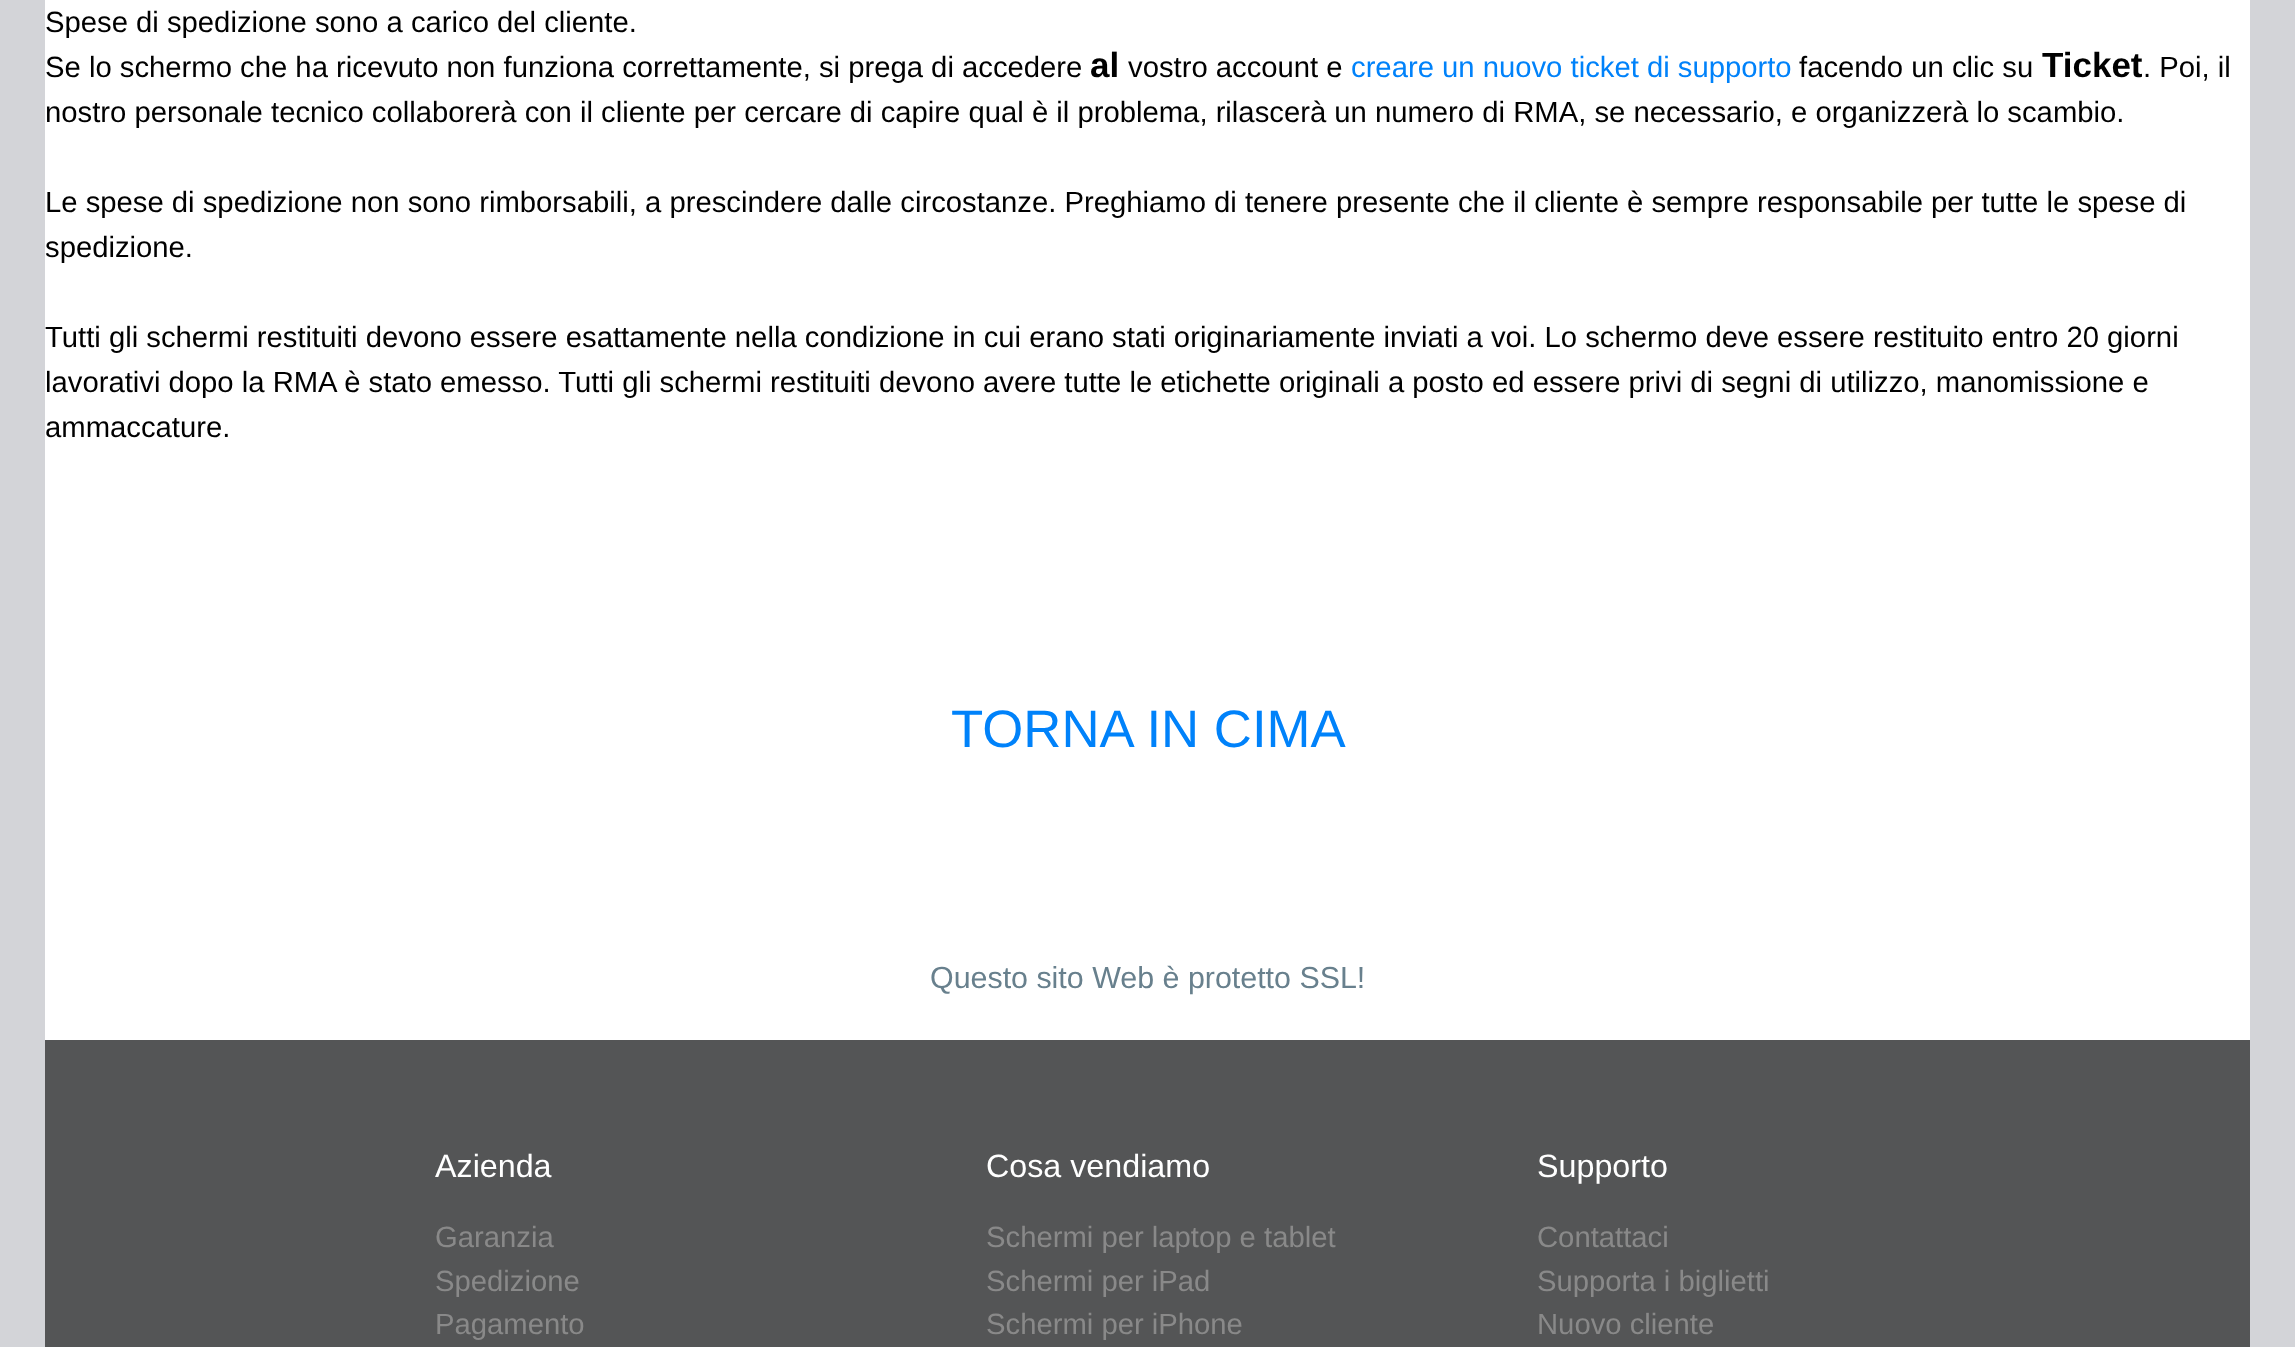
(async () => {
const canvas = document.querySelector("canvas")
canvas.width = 2295
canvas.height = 1347
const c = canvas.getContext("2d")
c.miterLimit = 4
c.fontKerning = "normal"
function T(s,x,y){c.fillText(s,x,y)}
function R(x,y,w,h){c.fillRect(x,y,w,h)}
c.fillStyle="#d3d4d8"
R(0,0,2295,1347)
c.fillStyle="#fff"
R(45,0,2205,1040)
c.font="29.25px Liberation Sans"
c.fillStyle="#000"
T("Spese di spedizione sono a carico del cliente.",45,32)
T("Se lo schermo che ha ricevuto non funziona correttamente, si prega di accedere",45,77)
c.font="bold 35px Liberation Sans"
T("al",1090,77)
c.font="29.25px Liberation Sans"
T("vostro account e",1128,77)
c.fillStyle="#0082fa"
T("creare un nuovo ticket di supporto",1351,77)
c.fillStyle="#000"
T("facendo un clic su",1799,77)
c.font="bold 35px Liberation Sans"
T("Ticket",2042,77)
c.font="29.25px Liberation Sans"
T(". Poi, il",2143,77)
T("nostro personale tecnico collaborerà con il cliente per cercare di capire qual è il problema, rilascerà un numero di RMA, se necessario, e organizzerà lo scambio.",45,122)
T("Le spese di spedizione non sono rimborsabili, a prescindere dalle circostanze. Preghiamo di tenere presente che il cliente è sempre responsabile per tutte le spese di",45,212)
T("spedizione.",45,257)
T("Tutti gli schermi restituiti devono essere esattamente nella condizione in cui erano stati originariamente inviati a voi. Lo schermo deve essere restituito entro 20 giorni",45,347)
T("lavorativi dopo la RMA è stato emesso. Tutti gli schermi restituiti devono avere tutte le etichette originali a posto ed essere privi di segni di utilizzo, manomissione e",45,392)
T("ammaccature.",45,437)
c.font="52.75px Liberation Sans"
c.fillStyle="#0082fa"
T("TORNA IN CIMA",951,747)
c.font="30.4px Liberation Sans"
c.fillStyle="#68808d"
T("Questo sito Web è protetto SSL!",930,988)
c.fillStyle="#545556"
R(45,1040,2205,307)
c.font="32.25px Liberation Sans"
c.fillStyle="#fff"
T("Azienda",435,1177)
c.font="29.25px Liberation Sans"
c.fillStyle="#898989"
T("Garanzia",435,1247)
T("Spedizione",435,1291)
T("Pagamento",435,1334)
c.font="32.25px Liberation Sans"
c.fillStyle="#fff"
T("Cosa vendiamo",986,1177)
c.font="29.25px Liberation Sans"
c.fillStyle="#898989"
T("Schermi per laptop e tablet",986,1247)
T("Schermi per iPad",986,1291)
T("Schermi per iPhone",986,1334)
c.font="32.25px Liberation Sans"
c.fillStyle="#fff"
T("Supporto",1537,1177)
c.font="29.25px Liberation Sans"
c.fillStyle="#898989"
T("Contattaci",1537,1247)
T("Supporta i biglietti",1537,1291)
T("Nuovo cliente",1537,1334)
})()
